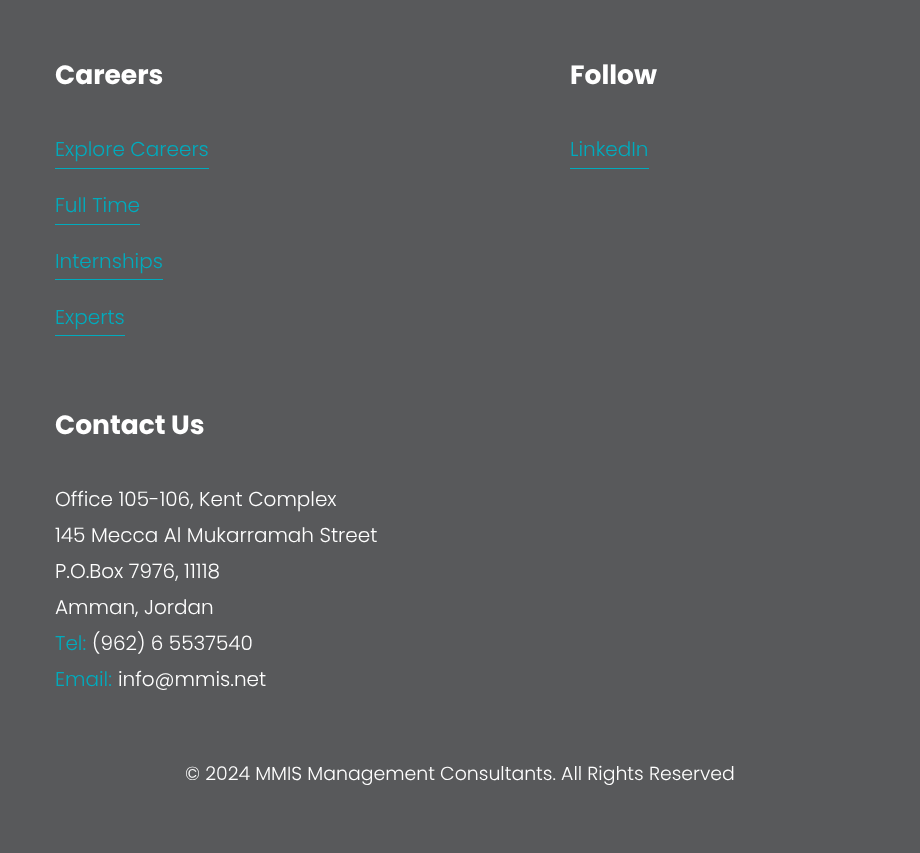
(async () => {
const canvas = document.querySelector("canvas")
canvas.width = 920
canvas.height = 853
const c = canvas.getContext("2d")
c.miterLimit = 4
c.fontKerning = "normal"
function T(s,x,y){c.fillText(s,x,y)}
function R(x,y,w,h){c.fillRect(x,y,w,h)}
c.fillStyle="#58595b"
R(0,0,920,853)
c.font="bold 26.5px Poppins"
c.fillStyle="#fff"
T("Careers",55,84)
c.fillStyle="#00abbd"
R(55,168,154,1)
c.font="300 20px Poppins"
T("Explore Careers",55,156)
R(55,224,85,1)
T("Full Time",55,212)
R(55,279,108,1)
T("Internships",55,268)
R(55,335,70,1)
T("Experts",55,324)
c.font="bold 26.5px Poppins"
c.fillStyle="#fff"
T("Follow",570,84)
c.fillStyle="#00abbd"
R(570,168,79,1)
c.font="300 20px Poppins"
T("LinkedIn",570,156)
c.font="bold 26.5px Poppins"
c.fillStyle="#fff"
T("Contact Us",55,434)
c.font="300 20px Poppins"
T("Office 105-106, Kent Complex",55,506)
T("145 Mecca Al Mukarramah Street",55,542)
T("P.O.Box 7976, 11118",55,578)
T("Amman, Jordan",55,614)
c.fillStyle="#00abbd"
T("Tel:",55,650)
c.fillStyle="#fff"
T("(962) 6 5537540",92,650)
c.fillStyle="#00abbd"
T("Email:",55,686)
c.fillStyle="#fff"
T("info@mmis.net",118,686)
c.font="300 18.9px Poppins"
T("© 2024 MMIS Management Consultants. All Rights Reserved",185,780)
})()
